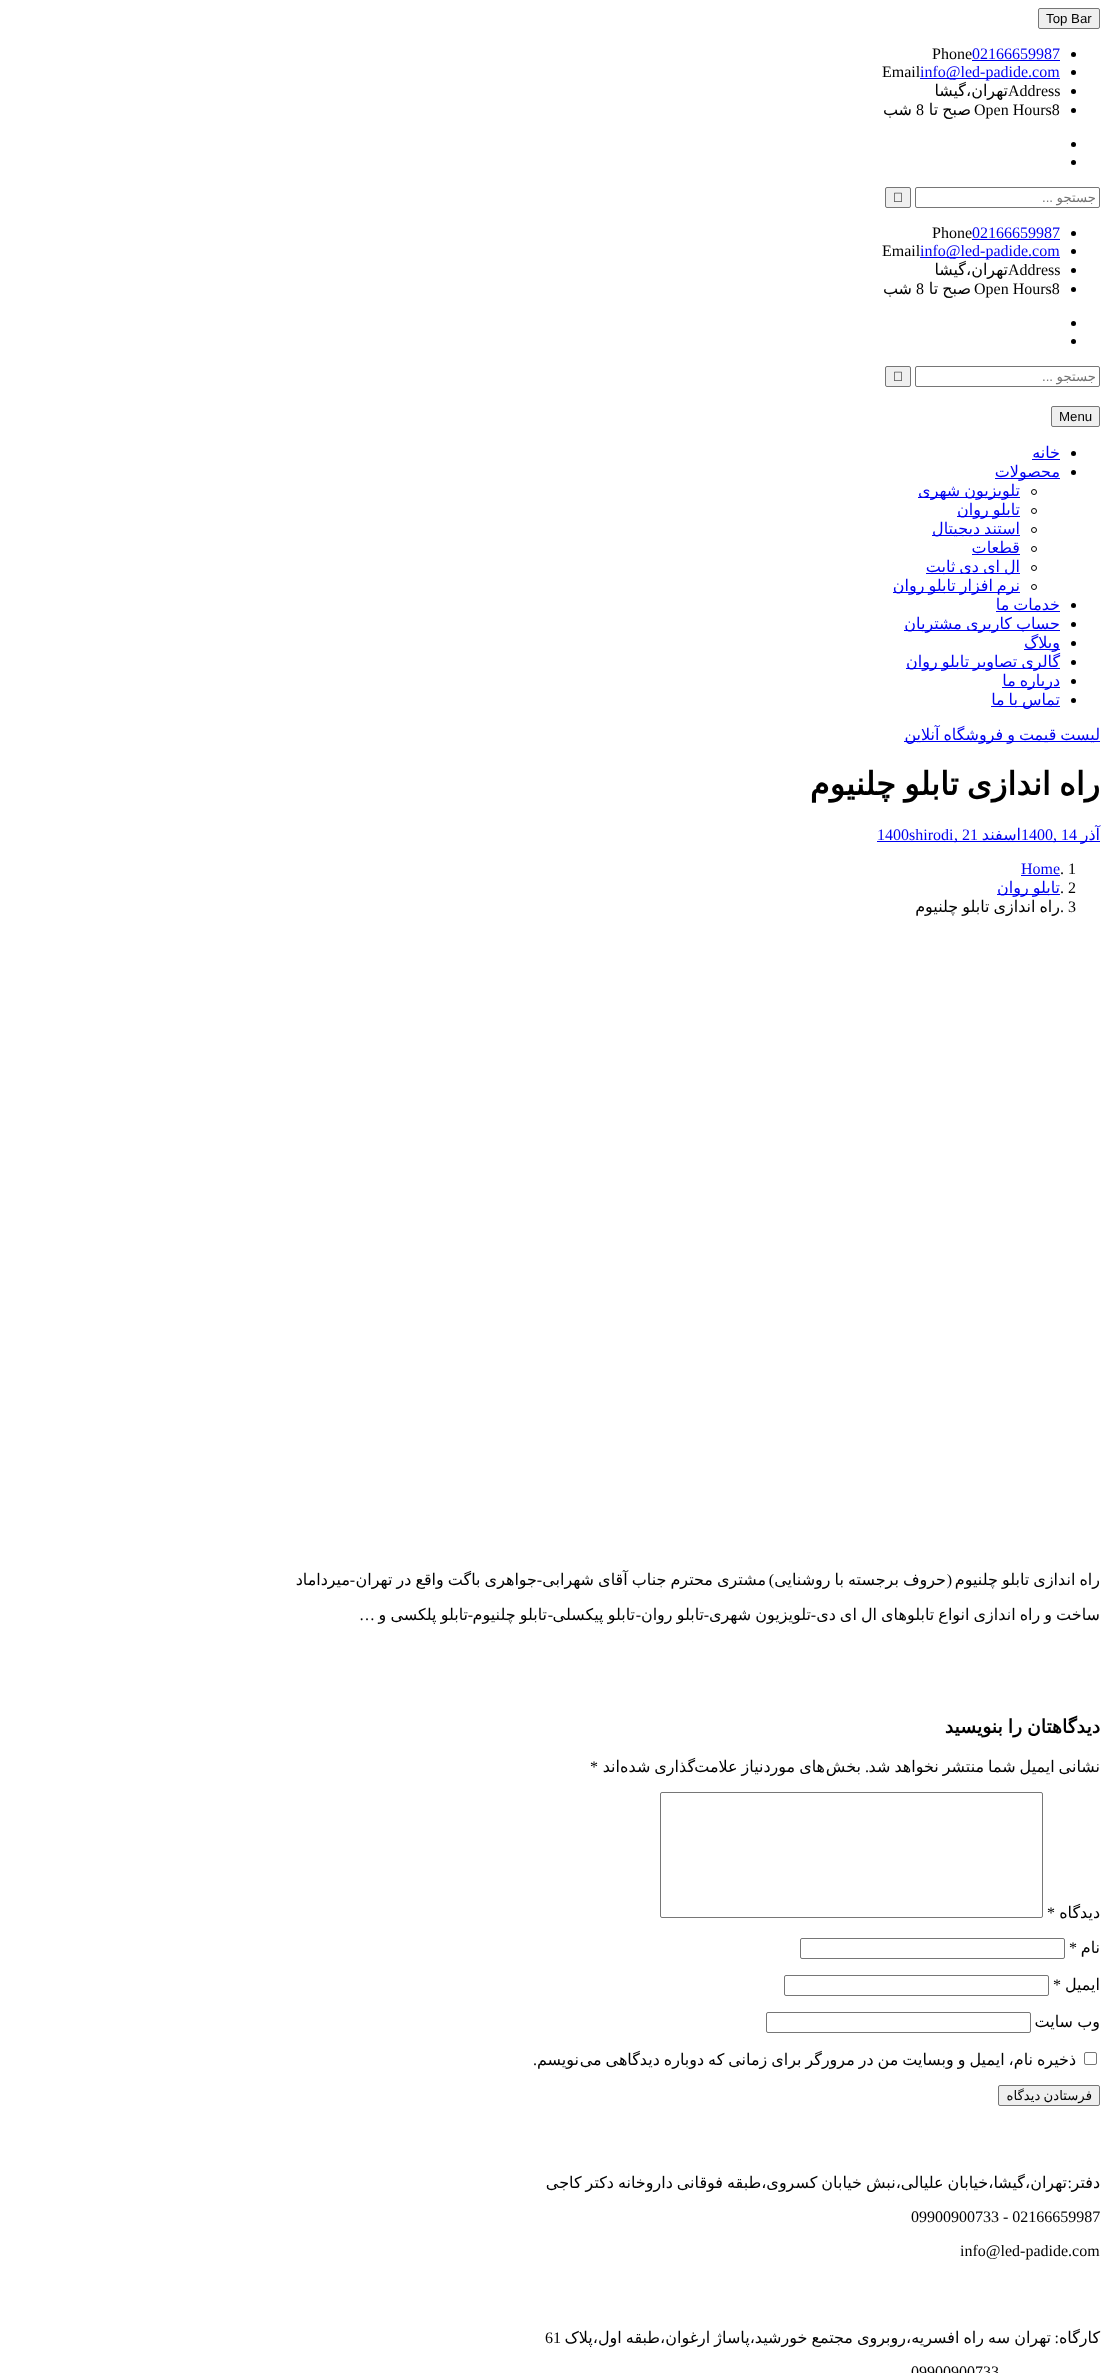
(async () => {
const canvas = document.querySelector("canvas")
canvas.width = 1108
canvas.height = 2373
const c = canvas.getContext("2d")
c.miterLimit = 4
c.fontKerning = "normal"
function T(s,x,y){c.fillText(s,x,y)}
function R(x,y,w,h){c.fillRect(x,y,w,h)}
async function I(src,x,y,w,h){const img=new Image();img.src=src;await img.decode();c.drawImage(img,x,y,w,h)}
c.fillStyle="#fff"
R(0,0,1108,2373)
c.fillStyle="#efefef"
c.beginPath()
c.roundRect(1038.5,8.5,61,20,1.5)
c.fill()
c.strokeStyle="#767676"
c.stroke()
c.font="13.25px Liberation Sans"
c.fillStyle="#000"
T("Top Bar",1046,23)
c.beginPath()
c.arc(1073.5,54.5,2.5,0,7)
c.fill()
c.font="16px Liberation Serif"
c.fillStyle="#00e"
T("02166659987",972,59)
R(972,60,88,1)
c.fillStyle="#000"
T("Phone",932,59)
c.beginPath()
c.arc(1073.5,72.5,2.5,0,7)
c.fill()
c.fillStyle="#00e"
R(920,78,140,1)
c.fillStyle="#000"
T("Email",882,77)
c.fillStyle="#00e"
T("info@led-padide.com",920,77)
c.fillStyle="#000"
c.beginPath()
c.arc(1073.5,91.5,2.5,0,7)
c.fill()
T("Address",1008,96)
c.direction="rtl"
c.font="16px DejaVu Sans"
T("تهران،گیشا",1008,96)
c.beginPath()
c.arc(1073.5,110.5,2.5,0,7)
c.fill()
c.direction="ltr"
c.font="16px Liberation Serif"
T("Open Hours8",974,115)
c.wordSpacing="-1px"
c.direction="rtl"
c.font="16px DejaVu Sans"
T("صبح تا",971,115)
c.wordSpacing="0px"
c.direction="ltr"
c.font="16px Liberation Serif"
T("8",916,115)
c.direction="rtl"
c.font="16px DejaVu Sans"
T("شب",912,115)
c.beginPath()
c.arc(1073.5,144.5,2.5,0,7)
c.fill()
c.beginPath()
c.arc(1073.5,162.5,2.5,0,7)
c.fill()
c.beginPath()
c.roundRect(915.5,187.5,184,20,1.5)
c.stroke()
c.font="13.25px DejaVu Sans"
c.fillStyle="#757575"
T("جستجو",1096,202)
c.font="13.25px Liberation Sans"
T("...",1053,202)
c.fillStyle="#efefef"
c.beginPath()
c.roundRect(885.5,187.5,25,20,1.5)
c.fill()
c.stroke()
await I("1.png",894,192,8,10)
c.fillStyle="#000"
c.beginPath()
c.arc(1073.5,233.5,2.5,0,7)
c.fill()
c.direction="ltr"
c.font="16px Liberation Serif"
c.fillStyle="#00e"
T("02166659987",972,238)
R(972,239,88,1)
c.fillStyle="#000"
T("Phone",932,238)
c.beginPath()
c.arc(1073.5,251.5,2.5,0,7)
c.fill()
c.fillStyle="#00e"
R(920,257,140,1)
c.fillStyle="#000"
T("Email",882,256)
c.fillStyle="#00e"
T("info@led-padide.com",920,256)
c.fillStyle="#000"
c.beginPath()
c.arc(1073.5,270.5,2.5,0,7)
c.fill()
T("Address",1008,275)
c.direction="rtl"
c.font="16px DejaVu Sans"
T("تهران،گیشا",1008,275)
c.beginPath()
c.arc(1073.5,289.5,2.5,0,7)
c.fill()
c.direction="ltr"
c.font="16px Liberation Serif"
T("Open Hours8",974,294)
c.wordSpacing="-1px"
c.direction="rtl"
c.font="16px DejaVu Sans"
T("صبح تا",971,294)
c.wordSpacing="0px"
c.direction="ltr"
c.font="16px Liberation Serif"
T("8",916,294)
c.direction="rtl"
c.font="16px DejaVu Sans"
T("شب",912,294)
c.beginPath()
c.arc(1073.5,323.5,2.5,0,7)
c.fill()
c.beginPath()
c.arc(1073.5,341.5,2.5,0,7)
c.fill()
c.beginPath()
c.roundRect(915.5,366.5,184,20,1.5)
c.stroke()
c.font="13.25px DejaVu Sans"
c.fillStyle="#757575"
T("جستجو",1096,381)
c.font="13.25px Liberation Sans"
T("...",1053,381)
c.fillStyle="#efefef"
c.beginPath()
c.roundRect(885.5,366.5,25,20,1.5)
c.fill()
c.stroke()
await I("1.png",894,371,8,10)
c.beginPath()
c.roundRect(1051.5,406.5,48,20,1.5)
c.fill()
c.stroke()
c.direction="ltr"
c.fillStyle="#000"
T("Menu",1059,421)
c.beginPath()
c.arc(1073.5,453.5,2.5,0,7)
c.fill()
c.direction="rtl"
c.font="16px DejaVu Sans"
c.fillStyle="#00e"
T("خانه",1060,458)
R(1032,459,28,1)
c.fillStyle="#000"
c.beginPath()
c.arc(1073.5,472.5,2.5,0,7)
c.fill()
c.fillStyle="#00e"
R(995,478,65,1)
T("محصولات",1060,477)
c.beginPath()
c.arc(1034,492,2.5,0,7)
c.strokeStyle="#000"
c.stroke()
R(918,497,102,1)
c.wordSpacing="-1.1px"
T("تلویزیون شهری",1020,496)
c.beginPath()
c.arc(1034,511,2.5,0,7)
c.stroke()
R(957,516,63,1)
T("تابلو روان",1020,515)
c.beginPath()
c.arc(1034,530,2.5,0,7)
c.stroke()
R(932,535,88,1)
T("استند دیجیتال",1020,534)
c.beginPath()
c.arc(1034,549,2.5,0,7)
c.stroke()
c.wordSpacing="0px"
T("قطعات",1020,553)
R(972,554,48,1)
c.beginPath()
c.arc(1034,568,2.5,0,7)
c.stroke()
R(926,573,94,1)
c.wordSpacing="-1.1px"
T("ال ای دی ثابت",1020,572)
c.beginPath()
c.arc(1034,587,2.5,0,7)
c.stroke()
R(893,592,127,1)
T("نرم افزار تابلو روان",1020,591)
c.fillStyle="#000"
c.beginPath()
c.arc(1073.5,605.5,2.5,0,7)
c.fill()
c.fillStyle="#00e"
T("خدمات ما",1060,610)
R(996,611,64,1)
c.fillStyle="#000"
c.beginPath()
c.arc(1073.5,624.5,2.5,0,7)
c.fill()
c.fillStyle="#00e"
R(904,630,156,1)
T("حساب کاربری مشتریان",1060,629)
c.fillStyle="#000"
c.beginPath()
c.arc(1073.5,643.5,2.5,0,7)
c.fill()
c.fillStyle="#00e"
R(1024,649,36,1)
c.wordSpacing="0px"
T("وبلاگ",1060,648)
c.fillStyle="#000"
c.beginPath()
c.arc(1073.5,662.5,2.5,0,7)
c.fill()
c.fillStyle="#00e"
R(906,668,154,1)
c.wordSpacing="-1.1px"
T("گالری تصاویر تابلو روان",1060,667)
c.fillStyle="#000"
c.beginPath()
c.arc(1073.5,681.5,2.5,0,7)
c.fill()
c.fillStyle="#00e"
R(1002,687,58,1)
T("درباره ما",1060,686)
c.fillStyle="#000"
c.beginPath()
c.arc(1073.5,700.5,2.5,0,7)
c.fill()
c.fillStyle="#00e"
R(991,706,69,1)
T("تماس با ما",1060,705)
R(904,741,196,1)
T("لیست قیمت و فروشگاه آنلاین",1100,740)
c.wordSpacing="-2px"
c.font="bold 32px DejaVu Sans"
c.fillStyle="#000"
T("راه اندازی تابلو چلنیوم",1100,795)
c.fillStyle="#00e"
R(1021,841,79,1)
c.wordSpacing="0px"
c.font="16px DejaVu Sans"
T("آذر",1100,840)
c.direction="ltr"
c.font="16px Liberation Serif"
T("1400, 14",1021,840)
c.direction="rtl"
c.font="16px DejaVu Sans"
T("اسفند",1021,840)
R(909,841,112,1)
c.direction="ltr"
c.font="16px Liberation Serif"
T(", 21",954,840)
T("1400shirodi",877,840)
R(877,841,32,1)
c.fillStyle="#000"
T(". 1",1060,874)
c.fillStyle="#00e"
T("Home",1021,874)
R(1021,875,39,1)
c.fillStyle="#000"
T(". 2",1060,893)
c.fillStyle="#00e"
R(997,894,63,1)
c.wordSpacing="-1.1px"
c.direction="rtl"
c.font="16px DejaVu Sans"
T("تابلو روان",1060,893)
c.wordSpacing="0px"
c.direction="ltr"
c.font="16px Liberation Serif"
c.fillStyle="#000"
T(". 3",1060,912)
c.wordSpacing="-1.1px"
c.direction="rtl"
c.font="16px DejaVu Sans"
T("راه اندازی تابلو چلنیوم",1060,912)
c.wordSpacing="-1px"
T("راه اندازی تابلو چلنیوم",1100,1585)
c.wordSpacing="0px"
c.font="16px Liberation Serif"
T("(",952,1585)
c.wordSpacing="-1px"
c.font="16px DejaVu Sans"
T("حروف برجسته با روشنایی",946,1585)
c.wordSpacing="0px"
c.font="16px Liberation Serif"
T(")",774,1585)
c.wordSpacing="-1px"
c.font="16px DejaVu Sans"
T("مشتری محترم جناب آقای شهرابی",766,1585)
c.wordSpacing="0px"
c.font="16px Liberation Serif"
T("-",542,1585)
c.wordSpacing="-1px"
c.font="16px DejaVu Sans"
T("جواهری باگت واقع در تهران",537,1585)
c.wordSpacing="0px"
c.font="16px Liberation Serif"
T("-",355,1585)
c.font="16px DejaVu Sans"
T("میرداماد",350,1585)
c.wordSpacing="-1px"
T("ساخت و راه اندازی انواع تابلوهای ال ای دی",1100,1620)
c.wordSpacing="0px"
c.font="16px Liberation Serif"
T("-",816,1620)
c.wordSpacing="-1px"
c.font="16px DejaVu Sans"
T("تلویزیون شهری",811,1620)
c.wordSpacing="0px"
c.font="16px Liberation Serif"
T("-",709,1620)
c.wordSpacing="-1px"
c.font="16px DejaVu Sans"
T("تابلو روان",704,1620)
c.wordSpacing="0px"
c.font="16px Liberation Serif"
T("-",641,1620)
c.wordSpacing="-1px"
c.font="16px DejaVu Sans"
T("تابلو پیکسلی",635,1620)
c.wordSpacing="0px"
c.font="16px Liberation Serif"
T("-",553,1620)
c.wordSpacing="-1px"
c.font="16px DejaVu Sans"
T("تابلو چلنیوم",547,1620)
c.wordSpacing="0px"
c.font="16px Liberation Serif"
T("-",473,1620)
c.wordSpacing="-1px"
c.font="16px DejaVu Sans"
T("تابلو پلکسی و",468,1620)
c.wordSpacing="0px"
c.font="16px Liberation Serif"
T("…",375,1620)
c.wordSpacing="-1px"
c.font="bold 18.75px DejaVu Sans"
T("دیدگاهتان را بنویسید",1100,1733)
c.wordSpacing="-1.1px"
c.font="16px DejaVu Sans"
T("نشانی ایمیل شما منتشر نخواهد شد",1100,1772)
c.wordSpacing="0px"
c.font="16px Liberation Serif"
T(".",869,1772)
c.font="16px DejaVu Sans"
T("بخش",861,1772)
c.wordSpacing="-1.1px"
T("های موردنیاز علامت",825,1772)
T("گذاری شده",695,1772)
c.wordSpacing="0px"
T("اند",620,1772)
c.direction="ltr"
c.font="16px Liberation Serif"
T("*",590,1772)
c.direction="rtl"
c.font="16px DejaVu Sans"
T("دیدگاه",1100,1918)
c.direction="ltr"
c.font="16px Liberation Serif"
T("*",1047,1918)
c.beginPath()
c.roundRect(660.5,1792.5,382,125,1.5)
c.strokeStyle="#767676"
c.stroke()
c.direction="rtl"
c.font="16px DejaVu Sans"
T("نام",1100,1953)
c.direction="ltr"
c.font="16px Liberation Serif"
T("*",1069,1953)
c.beginPath()
c.roundRect(800.5,1938.5,264,20,1.5)
c.stroke()
c.direction="rtl"
c.font="16px DejaVu Sans"
T("ایمیل",1100,1990)
c.direction="ltr"
c.font="16px Liberation Serif"
T("*",1053,1990)
c.beginPath()
c.roundRect(784.5,1975.5,264,20,1.5)
c.stroke()
c.direction="rtl"
c.font="16px DejaVu Sans"
T("وب",1100,2027)
T("سایت",1073,2027)
c.beginPath()
c.roundRect(766.5,2012.5,264,20,1.5)
c.stroke()
c.beginPath()
c.roundRect(1084.5,2052.5,12,12,1.5)
c.stroke()
c.wordSpacing="-1.1px"
T("ذخیره نام، ایمیل و وبسایت من در مرورگر برای زمانی که دوباره دیدگاهی می",1076,2065)
c.wordSpacing="0px"
T("نویسم",579,2065)
c.font="16px Liberation Serif"
T(".",537,2065)
c.fillStyle="#efefef"
c.beginPath()
c.roundRect(998.5,2085.5,101,20,1.5)
c.fill()
c.stroke()
c.wordSpacing="-1px"
c.font="13.25px DejaVu Sans"
c.fillStyle="#000"
T("فرستادن دیدگاه",1092,2100)
c.wordSpacing="0px"
c.font="16px Liberation Serif"
T(":",1072,2188)
c.font="16px DejaVu Sans"
T("دفتر",1100,2188)
c.wordSpacing="-1.1px"
T("تهران،گیشا،خیابان علیالی،نبش خیابان کسروی،طبقه فوقانی داروخانه دکتر کاجی",1067,2188)
c.wordSpacing="0px"
c.direction="ltr"
c.font="16px Liberation Serif"
T("09900900733 - 02166659987",911,2222)
T("info@led-padide.com",960,2256)
c.direction="rtl"
c.font="16px DejaVu Sans"
T("کارگاه",1100,2343)
c.font="16px Liberation Serif"
T(":",1059,2343)
c.wordSpacing="-1px"
c.font="16px DejaVu Sans"
T("تهران سه راه افسریه،روبروی مجتمع خورشید،پاساژ ارغوان،طبقه اول،پلاک",1051,2343)
c.wordSpacing="0px"
c.direction="ltr"
c.font="16px Liberation Serif"
T("61",545,2343)
T("09900900733",911,2377)
})()
